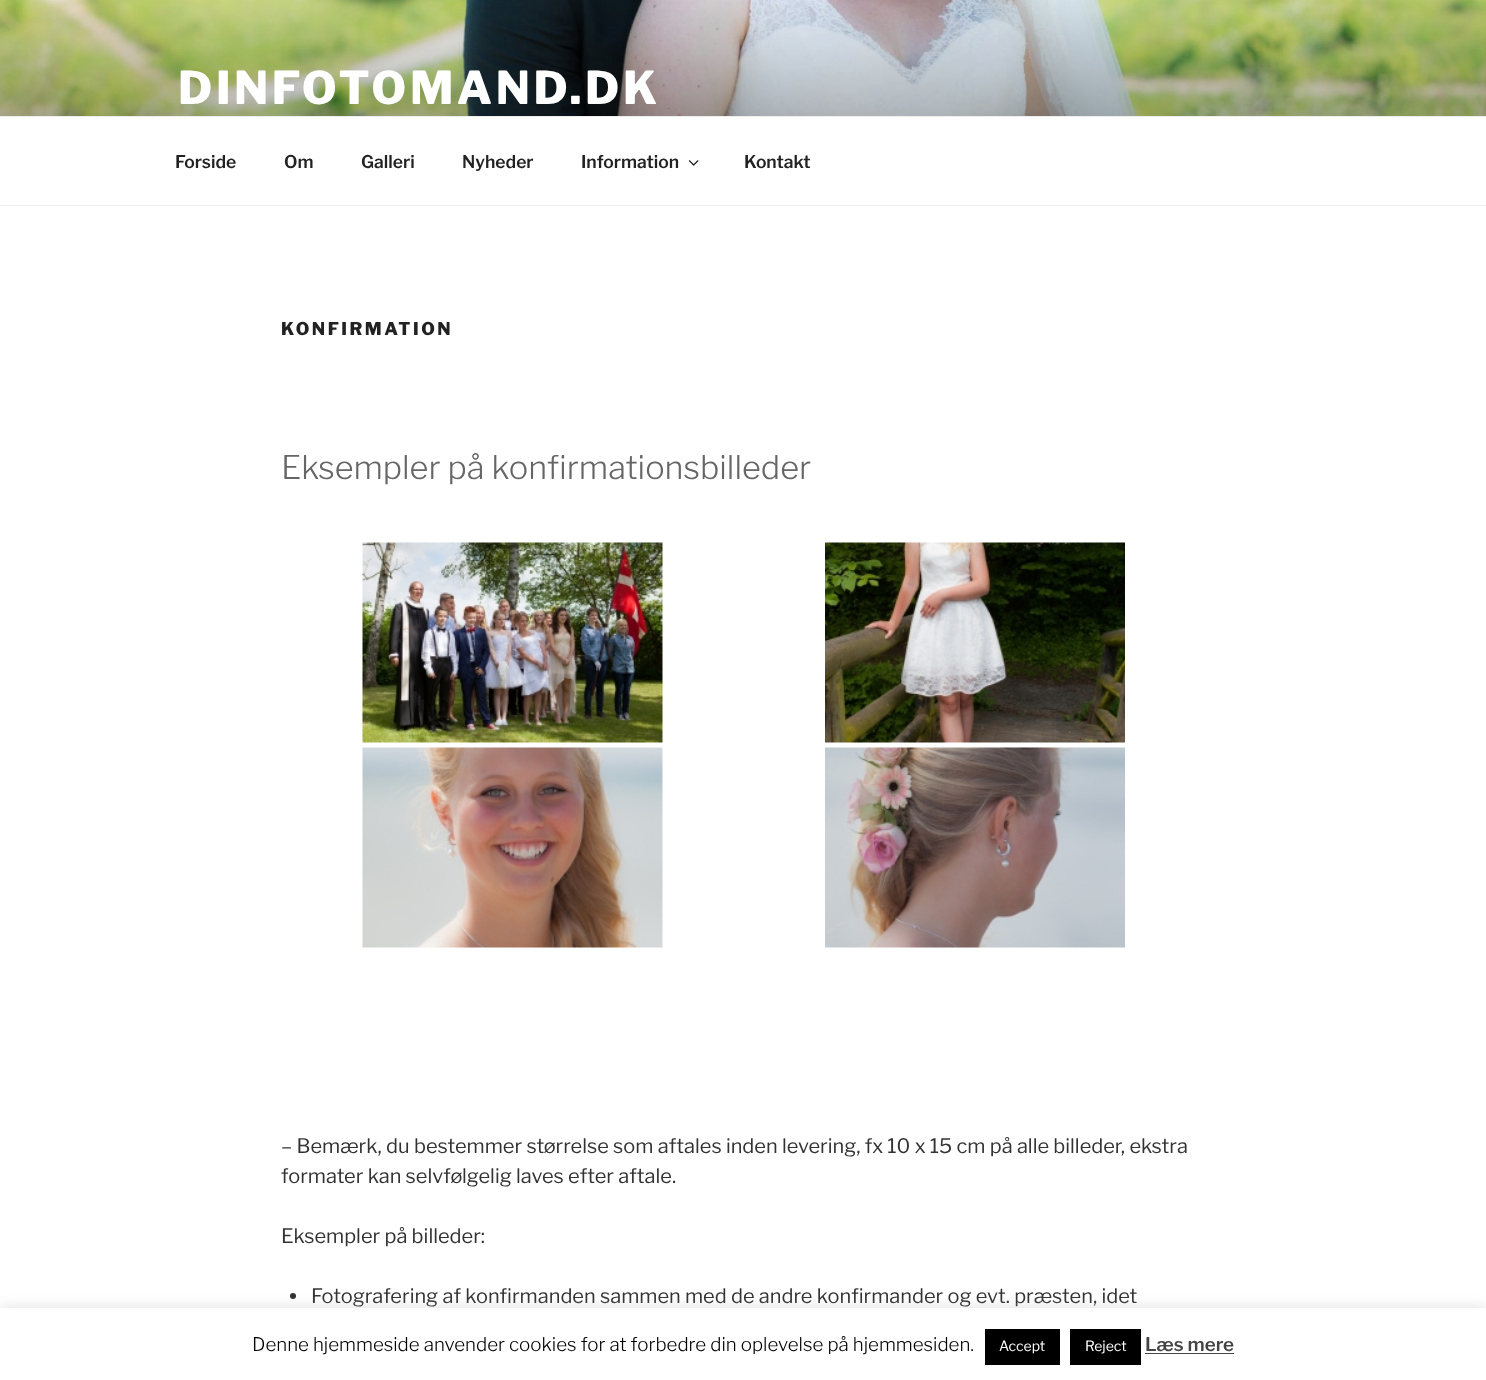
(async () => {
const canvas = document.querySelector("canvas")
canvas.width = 1486
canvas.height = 1380
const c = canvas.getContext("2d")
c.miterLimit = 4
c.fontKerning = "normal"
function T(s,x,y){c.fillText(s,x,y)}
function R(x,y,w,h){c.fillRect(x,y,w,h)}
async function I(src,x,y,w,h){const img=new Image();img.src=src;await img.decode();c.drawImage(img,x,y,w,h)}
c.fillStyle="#fff"
R(0,0,1486,1380)
await I("1.png",0,0,1486,116)
c.letterSpacing="3.6px"
c.font="800 45px Libre Franklin"
T("DINFOTOMAND.DK",178,104)
c.fillStyle="#eee"
R(0,116,1486,1)
R(0,205,1486,1)
c.letterSpacing="0px"
c.font="600 17.5px Libre Franklin"
c.fillStyle="#222"
T("Forside",175,168)
T("Om",284,168)
T("Galleri",361,168)
T("Nyheder",462,168)
T("Information",581,168)
await I("2.png",688,160,11,6)
T("Kontakt",744,168)
c.letterSpacing="2.5px"
c.font="800 17.5px Libre Franklin"
T("KONFIRMATION",281,335)
c.letterSpacing="0px"
c.font="300 32.5px Libre Franklin"
c.fillStyle="#666"
T("Eksempler på konfirmationsbilleder",281,479)
await I("3.png",362,542,301,201)
await I("4.png",825,542,300,201)
await I("5.png",362,747,301,201)
await I("6.png",825,747,300,201)
c.font="20px Libre Franklin"
c.fillStyle="#333"
T("– Bemærk, du bestemmer størrelse som aftales inden levering, fx 10 x 15 cm på alle billeder, ekstra",281,1153)
T("formater kan selvfølgelig laves efter aftale.",281,1183)
T("Eksempler på billeder:",281,1243)
c.beginPath()
c.arc(293,1296,3,0,7)
c.fill()
T("Fotografering af konfirmanden sammen med de andre konfirmander og evt. præsten, idet",311,1303)
c.fillStyle="#acabab4d"
c.filter="blur(6px)"
c.beginPath()
c.rect(0,1306,1486,73)
c.fill()
c.filter="none"
c.fillStyle="#fff"
R(0,1308,1486,72)
c.font="300 18.75px Libre Franklin"
c.fillStyle="#000"
T("Denne hjemmeside anvender cookies for at forbedre din oplevelse på hjemmesiden.",252,1351)
R(985,1329,75,36)
c.font="14px Libre Franklin"
c.fillStyle="#fff"
T("Accept",999,1351)
c.fillStyle="#000"
R(1070,1329,71,36)
c.fillStyle="#fff"
T("Reject",1085,1351)
c.font="600 18.75px Libre Franklin"
c.fillStyle="#444"
T("Læs mere",1145,1351)
R(1145,1353,89,1)
})()
